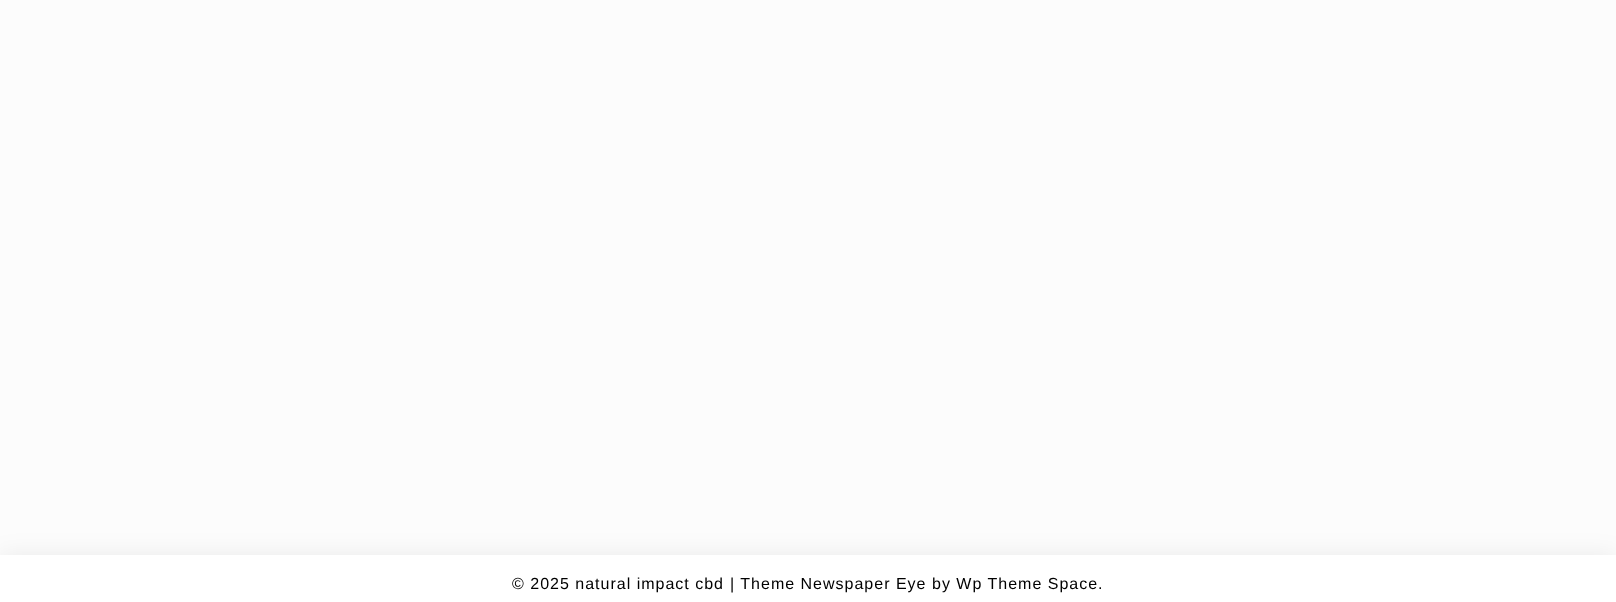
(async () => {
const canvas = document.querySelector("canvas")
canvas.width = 1616
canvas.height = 602
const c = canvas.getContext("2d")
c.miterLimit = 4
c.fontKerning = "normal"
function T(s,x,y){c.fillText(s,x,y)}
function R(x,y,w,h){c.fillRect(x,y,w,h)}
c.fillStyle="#fcfcfc"
R(0,0,1616,602)
c.fillStyle="#00000012"
c.filter="blur(12.5px)"
c.beginPath()
c.rect(0,555,1616,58)
c.fill()
c.filter="none"
c.fillStyle="#fff"
R(0,555,1616,47)
c.letterSpacing="1px"
c.font="16px Liberation Sans"
c.fillStyle="#000"
T("© 2025 natural impact cbd",512,589)
T("| Theme Newspaper Eye",730,589)
T("by Wp Theme Space.",932,589)
})()
